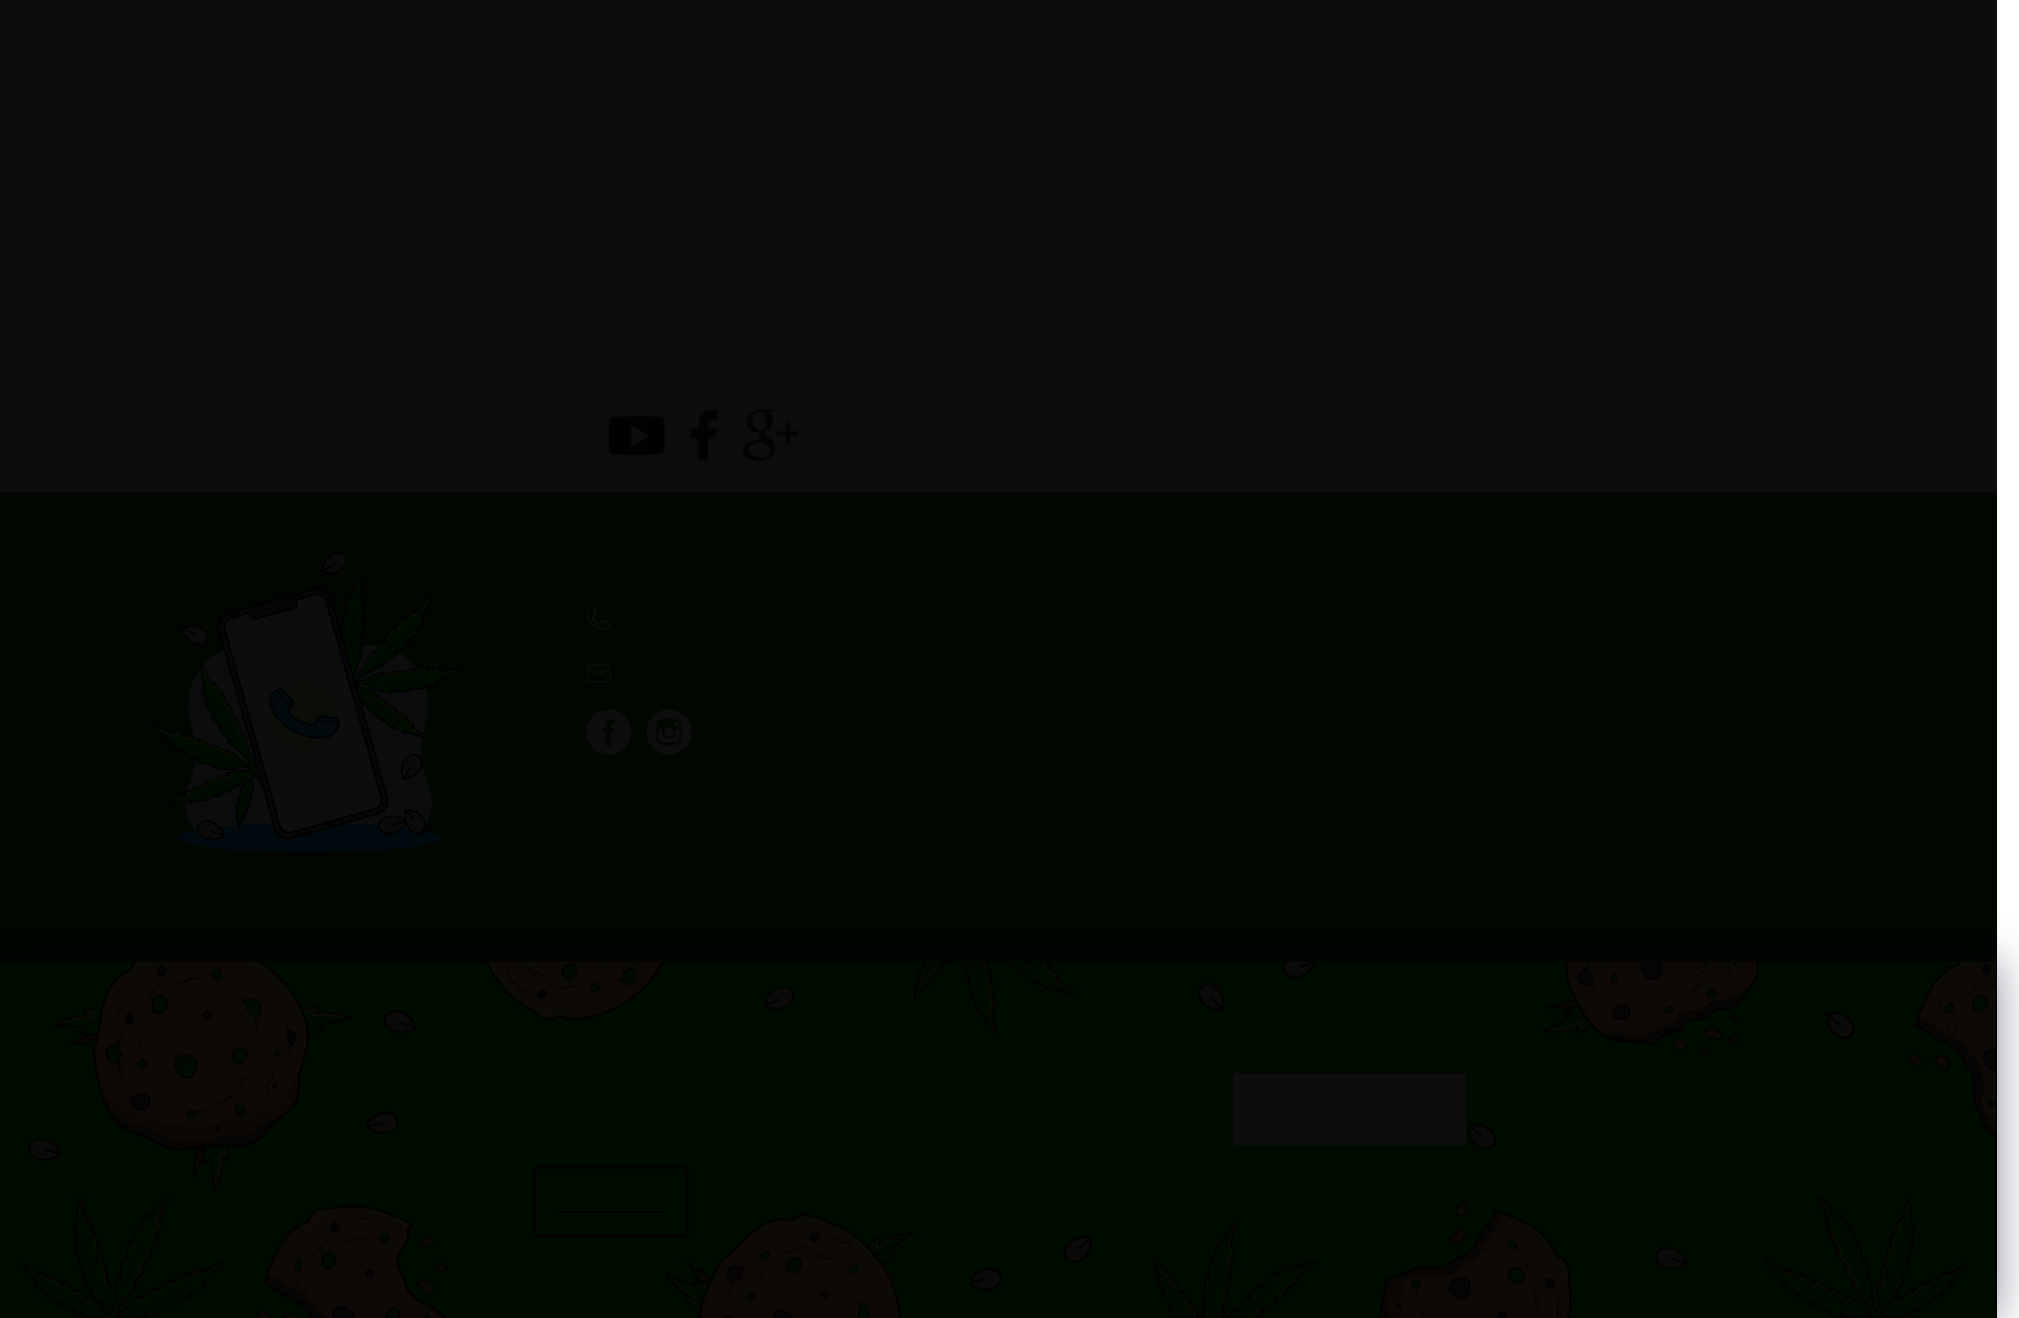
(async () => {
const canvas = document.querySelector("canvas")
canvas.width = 2019
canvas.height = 1318
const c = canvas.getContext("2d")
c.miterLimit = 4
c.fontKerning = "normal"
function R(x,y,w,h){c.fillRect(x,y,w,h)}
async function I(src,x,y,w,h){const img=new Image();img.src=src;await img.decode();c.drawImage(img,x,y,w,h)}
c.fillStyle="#fff"
R(0,0,2019,1318)
await I("1.png",607,415,59,41)
await I("2.png",690,409,29,52)
await I("3.png",742,409,58,52)
c.fillStyle="#23700e"
R(0,492,1997,826)
await I("4.png",153,552,309,301)
await I("5.png",587,606,24,24)
await I("6.png",587,664,24,19)
await I("7.png",587,710,45,45)
await I("8.png",647,710,45,45)
c.fillStyle="#1b193980"
c.filter="blur(22.5px)"
c.beginPath()
c.rect(0,962,1997,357)
c.fill()
c.filter="none"
await I("9.png",0,962,1997,356)
c.fillStyle="#fff"
R(1233,1073,233,72)
c.beginPath()
c.roundRect(534.5,1167.5,153,69,4.5)
c.strokeStyle="#252525"
c.lineWidth=3
c.stroke()
c.fillStyle="#000"
R(558,1211,105,2)
c.fillStyle="#000000f2"
R(0,0,1997,1318)
})()
